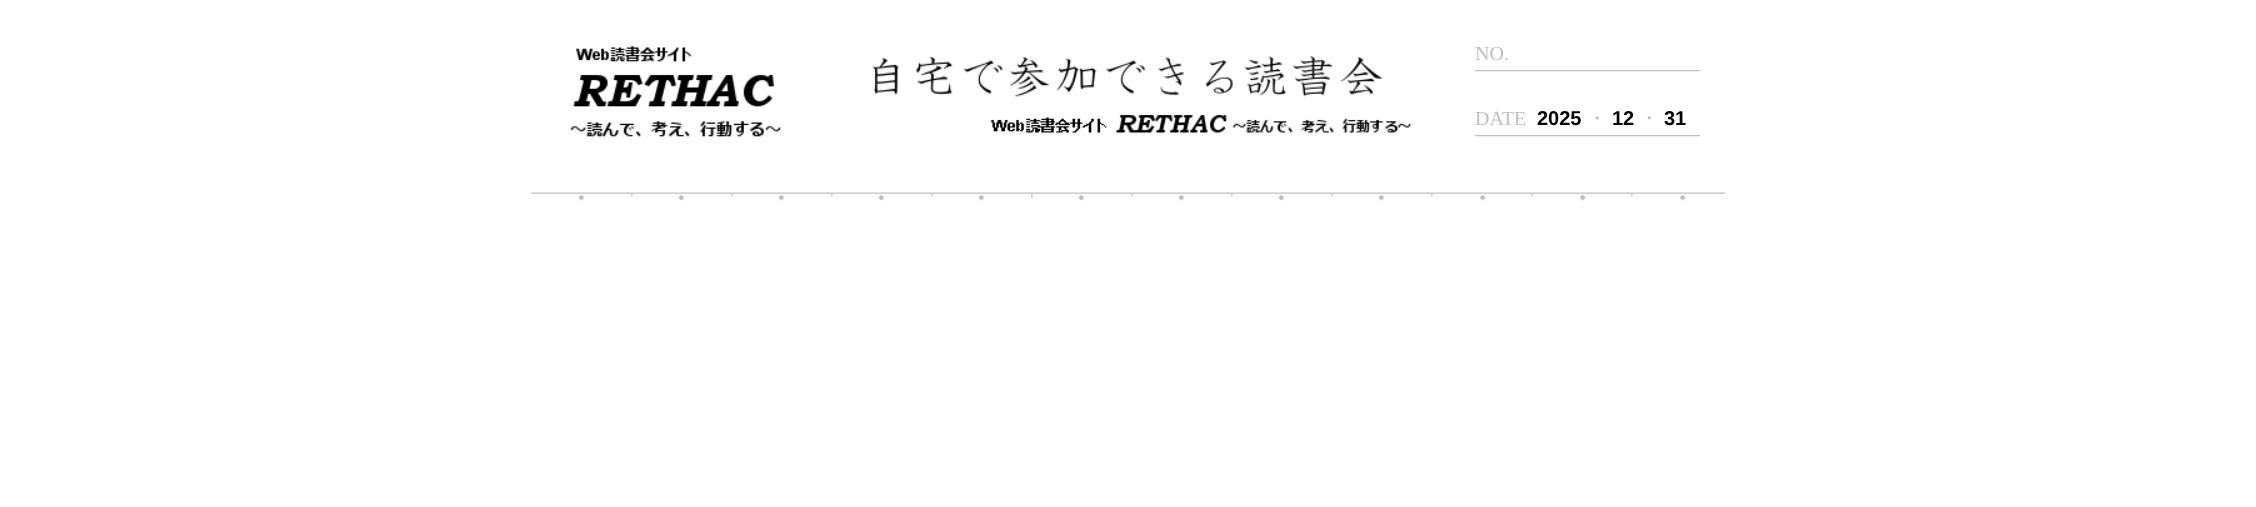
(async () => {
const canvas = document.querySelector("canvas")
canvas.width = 2256
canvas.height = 507
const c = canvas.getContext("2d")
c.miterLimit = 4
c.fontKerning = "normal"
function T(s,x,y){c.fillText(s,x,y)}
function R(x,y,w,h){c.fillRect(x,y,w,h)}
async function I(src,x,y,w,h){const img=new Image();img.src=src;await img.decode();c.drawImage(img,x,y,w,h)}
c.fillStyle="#fff"
R(0,0,2256,507)
await I("1.png",570,46,212,91)
await I("2.png",872,56,540,77)
c.font="20px Liberation Serif"
c.fillStyle="#c0c0c0"
T("NO.",1475,60)
await I("3.png",1475,70,225,2)
T("DATE",1475,125)
c.font="bold 20px Liberation Sans"
c.fillStyle="#000"
T("2025",1537,125)
c.font="500 20px WenQuanYi Zen Hei"
c.fillStyle="#c0c0c0"
T("・",1587,125)
c.font="bold 20px Liberation Sans"
c.fillStyle="#000"
T("12",1612,125)
c.font="500 20px WenQuanYi Zen Hei"
c.fillStyle="#c0c0c0"
T("・",1639,125)
c.font="bold 20px Liberation Sans"
c.fillStyle="#000"
T("31",1664,125)
await I("3.png",1475,135,225,2)
await I("4.png",531,192,1194,9)
})()
